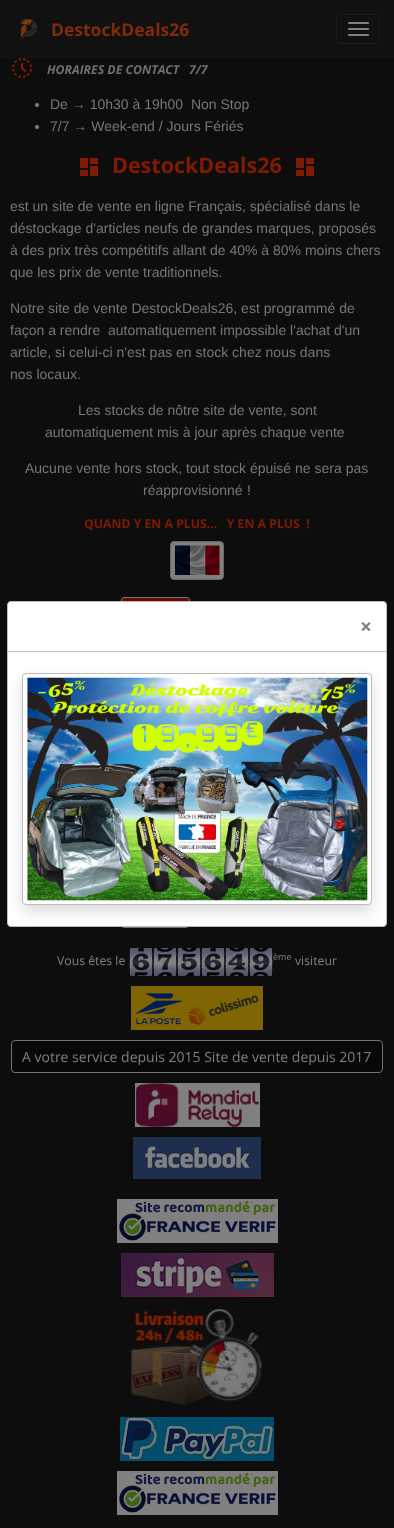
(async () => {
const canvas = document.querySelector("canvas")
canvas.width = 394
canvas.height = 1528
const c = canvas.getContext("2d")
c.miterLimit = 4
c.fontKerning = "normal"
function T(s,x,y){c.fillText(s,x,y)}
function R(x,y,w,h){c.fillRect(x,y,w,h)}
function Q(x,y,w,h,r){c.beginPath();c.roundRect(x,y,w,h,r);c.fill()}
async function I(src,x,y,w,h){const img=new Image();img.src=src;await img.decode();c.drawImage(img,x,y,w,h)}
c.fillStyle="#0d0d0d"
R(0,0,394,1528)
c.fillStyle="#111"
R(0,0,394,58)
await I("1.png",19,19,19,19)
c.font="bold 17.5px Open Sans"
c.fillStyle="#802b0e"
T("DestockDeals26",51,36)
c.beginPath()
c.roundRect(336.5,14.5,43,29,3.5)
c.strokeStyle="#1c1c1c"
c.stroke()
c.fillStyle="#808080"
Q(348,22,21,2,1)
Q(348,28,21,2,1)
Q(348,34,21,2,1)
await I("2.png",12,58,20,20)
c.font="italic bold 12.25px Open Sans"
c.fillStyle="#6f6f6f"
T("HORAIRES DE CONTACT   7/7",47,74)
c.fillStyle="#808080"
c.beginPath()
c.arc(37,105,2,0,7)
c.fill()
c.font="14px Liberation Sans"
c.fillStyle="#777"
T("De → 10h30 à 19h00  Non Stop",50,109)
c.fillStyle="#808080"
c.beginPath()
c.arc(37,127,2,0,7)
c.fill()
c.fillStyle="#777"
T("7/7 → Week-end / Jours Fériés",50,131)
await I("3.png",80,158,18,18)
c.font="bold 21.5px Open Sans"
c.fillStyle="#801a00"
T("DestockDeals26",112,173)
await I("3.png",296,158,18,18)
c.font="14px Liberation Sans"
c.fillStyle="#777"
T("est un site de vente en ligne Français, spécialisé dans le",10,211)
T("déstockage d'articles neufs de grandes marques, proposés",10,233)
T("à des prix très compétitifs allant de 40% à 80% moins chers",10,255)
T("que les prix de vente traditionnels.",10,277)
T("Notre site de vente DestockDeals26, est programmé de",10,313)
T("façon a rendre",10,335)
T("automatiquement impossible l'achat d'un",108,335)
T("article, si celui-ci n'est pas en stock chez nous dans",10,357)
T("nos locaux.",10,379)
T("Les stocks de nôtre site de vente, sont",78,415)
T("automatiquement mis à jour après chaque vente",45,437)
T("Aucune vente hors stock, tout stock épuisé ne sera pas",25,473)
T("réapprovisionné",143,495)
c.fillStyle="#808080"
T("!",247,495)
c.font="bold 12.25px Open Sans"
c.fillStyle="#801a00"
T("QUAND Y EN A PLUS...   Y EN A PLUS  !",84,528)
c.fillStyle="#808080"
c.beginPath()
c.roundRect(170.5,541.5,53,38,3.5)
c.fill()
c.strokeStyle="#666"
c.stroke()
await I("4.png",175,545,45,30)
c.fillStyle="#680a03"
c.beginPath()
c.roundRect(121.5,597.5,68,23,2.5)
c.fill()
c.strokeStyle="#737373"
c.stroke()
c.beginPath()
c.roundRect(121.5,903.5,67,24,2.5)
c.stroke()
c.font="12.25px Open Sans"
c.fillStyle="#808080"
T("Vous êtes le",57,965)
await I("5.png",129,948,24,28)
await I("6.png",153,948,24,28)
await I("7.png",177,948,24,28)
await I("5.png",201,948,24,28)
await I("8.png",225,948,24,28)
await I("9.png",249,948,24,28)
c.font="9px Open Sans"
T("ème",273,960)
c.font="12.25px Open Sans"
T("visiteur",295,965)
await I("10.png",131,986,132,44)
c.fillStyle="#090707"
c.beginPath()
c.roundRect(11.5,1040.5,371,32,3.5)
c.fill()
c.stroke()
c.font="14px Open Sans"
c.fillStyle="#808080"
T("A votre service depuis 2015 Site de vente depuis 2017",22,1062)
await I("11.png",135,1083,125,44)
await I("12.png",133,1137,128,42)
await I("13.png",117,1199,161,44)
await I("14.png",121,1253,153,44)
await I("15.png",130,1308,133,98)
await I("16.png",120,1417,154,44)
await I("13.png",117,1471,161,44)
c.fillStyle="#fff"
c.beginPath()
c.roundRect(7.5,601.5,379,325,3.5)
c.fill()
c.strokeStyle="#bcbcbc"
c.stroke()
c.fillStyle="#bcbcbc"
R(8,651,378,1)
c.font="bold 21px Open Sans"
c.fillStyle="#808080"
T("×",360,634)
c.fillStyle="#1a1a1a26"
c.filter="blur(7px)"
c.beginPath()
c.roundRect(22,680,350,232,4)
c.fill()
c.filter="none"
c.fillStyle="#fff"
c.beginPath()
c.roundRect(22.5,673.5,349,231,3.5)
c.fill()
c.stroke()
await I("17.png",27,677,341,224)
})()
